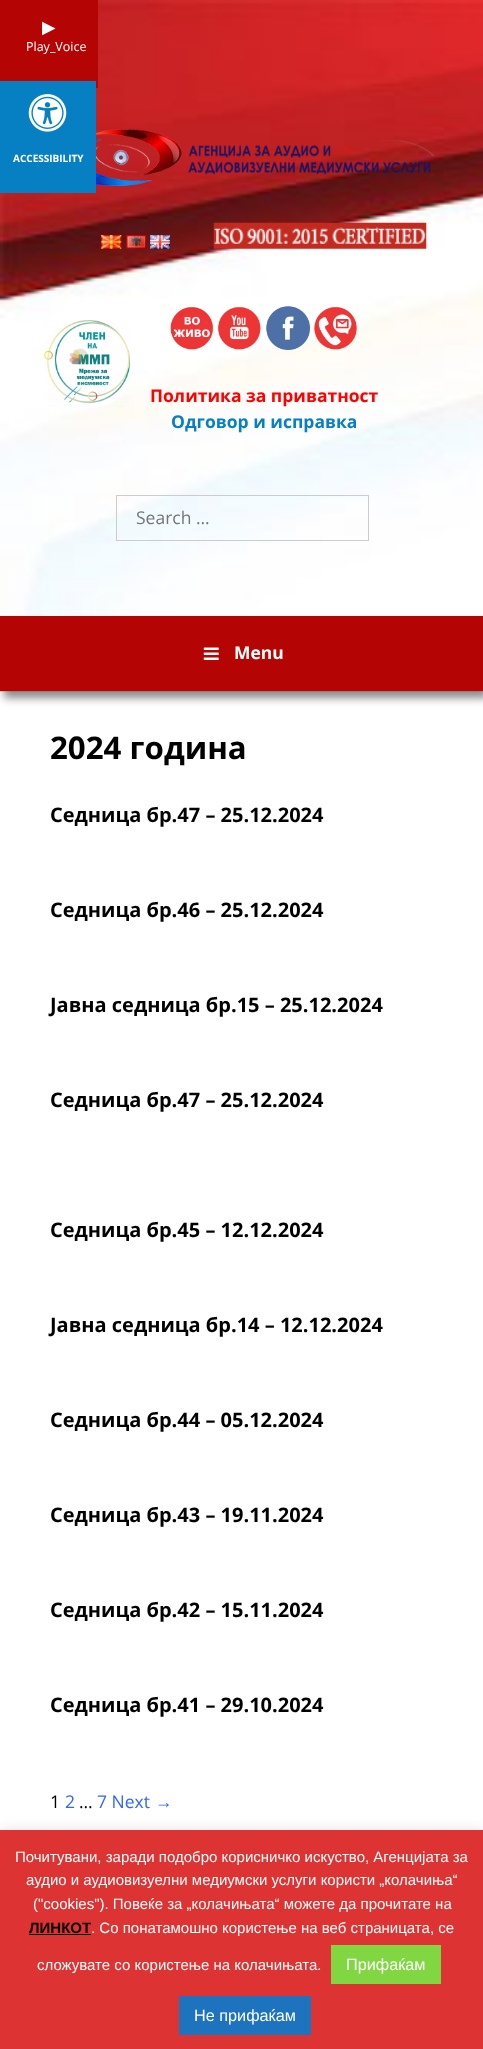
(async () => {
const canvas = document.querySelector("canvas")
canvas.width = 483
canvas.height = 2049
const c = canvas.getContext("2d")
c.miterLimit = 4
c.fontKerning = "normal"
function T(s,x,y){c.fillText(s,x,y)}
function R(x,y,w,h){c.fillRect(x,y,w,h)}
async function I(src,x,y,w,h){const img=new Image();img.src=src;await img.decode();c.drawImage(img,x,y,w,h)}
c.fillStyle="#fff"
R(0,0,483,2049)
await I("2.png",0,0,483,616)
c.fillStyle="#b40404"
R(0,0,98,88)
c.font="17.5px DejaVu Sans"
c.fillStyle="#fff"
T("▶",42,33)
c.font="12.5px Open Sans"
T("Play_Voice",26,51)
c.fillStyle="#0780c3"
R(0,81,96,112)
await I("1.png",28,94,39,38)
c.font="bold 10px Open Sans"
c.fillStyle="#fff"
T("ACCESSIBILITY",13,162)
await I("3.png",96,129,338,57)
await I("4.png",101,235,21,14)
await I("5.png",126,235,21,14)
await I("6.png",150,235,20,14)
await I("7.png",213,222,214,27)
await I("8.png",44,320,86,88)
await I("9.png",170,307,43,43)
await I("10.png",218,307,43,43)
await I("11.png",266,306,44,44)
await I("12.png",314,307,43,43)
c.font="bold 17.5px Open Sans"
c.fillStyle="#f00"
T("Политика за приватност",150,402)
c.fillStyle="#0780c3"
T("Одговор и исправка",171,428)
c.strokeStyle="#ccc"
c.strokeRect(116.5,495.5,252,45)
c.font="17.5px Open Sans"
c.fillStyle="#757575"
T("Search …",136,524)
c.fillStyle="#8b8a8a"
c.filter="blur(4px)"
c.beginPath()
c.rect(4,623,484,75)
c.fill()
c.filter="none"
await I("13.png",0,691,483,1)
c.fillStyle="#b40404"
R(0,616,483,75)
await I("14.png",203,647,16,13)
c.font="bold 17.5px Open Sans"
c.fillStyle="#fff"
T("Menu",234,659)
c.font="bold 31.25px Open Sans"
c.fillStyle="#000"
T("2024 година",50,759)
c.font="bold 20px Open Sans"
T("Седница бр.47 – 25.12.2024",50,822)
T("Седница бр.46 – 25.12.2024",50,917)
T("Јавна седница бр.15 – 25.12.2024",50,1012)
T("Седница бр.47 – 25.12.2024",50,1107)
T("Седница бр.45 – 12.12.2024",50,1237)
T("Јавна седница бр.14 – 12.12.2024",50,1332)
T("Седница бр.44 – 05.12.2024",50,1427)
T("Седница бр.43 – 19.11.2024",50,1522)
T("Седница бр.42 – 15.11.2024",50,1617)
T("Седница бр.41 – 29.10.2024",50,1712)
c.font="17.5px Open Sans"
T("1",50,1808)
c.fillStyle="#36f"
T("2",65,1808)
c.fillStyle="#000"
T("…",79,1808)
c.fillStyle="#36f"
T("7 Next",97,1808)
c.font="17.5px Liberation Sans"
T("→",155,1808)
c.fillStyle="#acabab4d"
c.filter="blur(6px)"
c.beginPath()
c.rect(0,1829,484,220)
c.fill()
c.filter="none"
c.fillStyle="#d33"
R(0,1830,483,219)
c.font="15px Liberation Sans"
c.fillStyle="#fff"
T("Почитувани, заради подобро корисничко искуство, Агенцијата за",15,1862)
T("аудио и аудиовизуелни медиумски услуги користи „колачиња“",26,1885)
T("(\"cookies\"). Повеќе за „колачињата“ можете да прочитате на",33,1909)
c.font="bold 15px Liberation Sans"
c.fillStyle="#000"
T("ЛИНКОТ",29,1933)
R(29,1934,62,1)
c.font="15px Liberation Sans"
c.fillStyle="#fff"
T(". Со понатамошно користење на веб страницата, се",91,1933)
T("сложувате со користење на колачињата.",37,1970)
c.fillStyle="#81d742"
R(331,1945,110,39)
c.font="16.25px Liberation Sans"
c.fillStyle="#fff"
T("Прифаќам",346,1970)
c.fillStyle="#1e73be"
R(179,1996,132,39)
c.fillStyle="#fff"
T("Не прифаќам",194,2021)
})()
